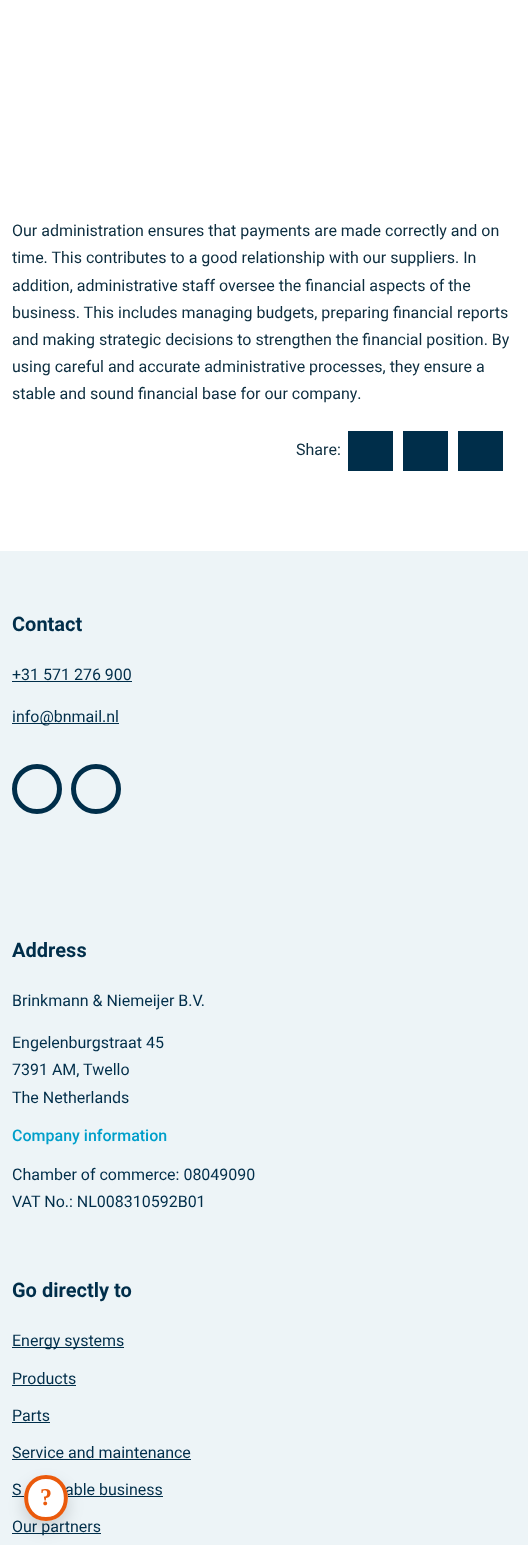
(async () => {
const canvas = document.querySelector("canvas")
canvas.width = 528
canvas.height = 1545
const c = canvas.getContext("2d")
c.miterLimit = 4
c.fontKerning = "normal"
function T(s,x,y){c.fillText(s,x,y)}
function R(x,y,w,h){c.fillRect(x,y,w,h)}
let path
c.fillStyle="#fff"
R(0,0,528,1545)
c.font="16px Roboto"
c.fillStyle="#0c2d3f"
T("Our administration ensures that payments are made correctly and on",12,236)
T("time. This contributes to a good relationship with our suppliers. In",12,263)
T("addition, administrative staff oversee the financial aspects of the",12,291)
T("business. This includes managing budgets, preparing financial reports",12,318)
T("and making strategic decisions to strengthen the financial position. By",12,345)
T("using careful and accurate administrative processes, they ensure a",12,372)
T("stable and sound financial base for our company.",12,399)
T("Share:",296,455)
c.fillStyle="#002e4a"
R(348,431,45,40)
R(403,431,45,40)
R(458,431,45,40)
c.fillStyle="#edf4f7"
R(0,551,528,994)
c.font="bold 20px Roboto"
c.fillStyle="#002e4a"
T("Contact",12,631)
c.font="16px Roboto"
T("+31 571 276 900",12,680)
R(12,681,120,1)
R(12,723,107,1)
T("info@bnmail.nl",12,722)
c.beginPath()
c.arc(37,789,22.5,0,7)
c.strokeStyle="#002e4a"
c.lineWidth=5
c.stroke()
c.beginPath()
c.arc(96,789,22.5,0,7)
c.stroke()
c.font="bold 20px Roboto"
T("Address",12,957)
c.font="16px Roboto"
T("Brinkmann & Niemeijer B.V.",12,1006)
T("Engelenburgstraat 45",12,1048)
T("7391 AM, Twello",12,1075)
T("The Netherlands",12,1103)
c.font="500 16px Roboto"
c.fillStyle="#009fca"
T("Company information",12,1141)
c.font="16px Roboto"
c.fillStyle="#002e4a"
T("Chamber of commerce: 08049090",12,1180)
T("VAT No.: NL008310592B01",12,1207)
c.font="bold 20px Roboto"
T("Go directly to",12,1297)
R(12,1347,112,1)
c.font="16px Roboto"
T("Energy systems",12,1346)
T("Products",12,1384)
R(12,1385,64,1)
T("Parts",12,1421)
R(12,1422,38,1)
T("Service and maintenance",12,1458)
R(12,1459,179,1)
T("S",12,1495)
R(12,1496,151,1)
T("able business",65,1495)
R(12,1533,89,1)
T("Our partners",12,1532)
c.fillStyle="#00000026"
c.filter="blur(8px)"
c.beginPath()
c.roundRect(24,1483,44,46,22)
c.fill()
c.filter="none"
c.fillStyle="#fff"
c.beginPath()
c.ellipse(46,1498,22,23,0,0,7)
c.fill()
path = new Path2D("M46 1477c26.5 0 26.5 42 0 42c-26.5 0-26.5-42 0-42z")
c.strokeStyle="#ea5a0c"
c.lineWidth=4
c.stroke(path)
c.font="bold 24px Liberation Serif"
c.fillStyle="#ea5a0c"
T("?",40,1505)
})()
